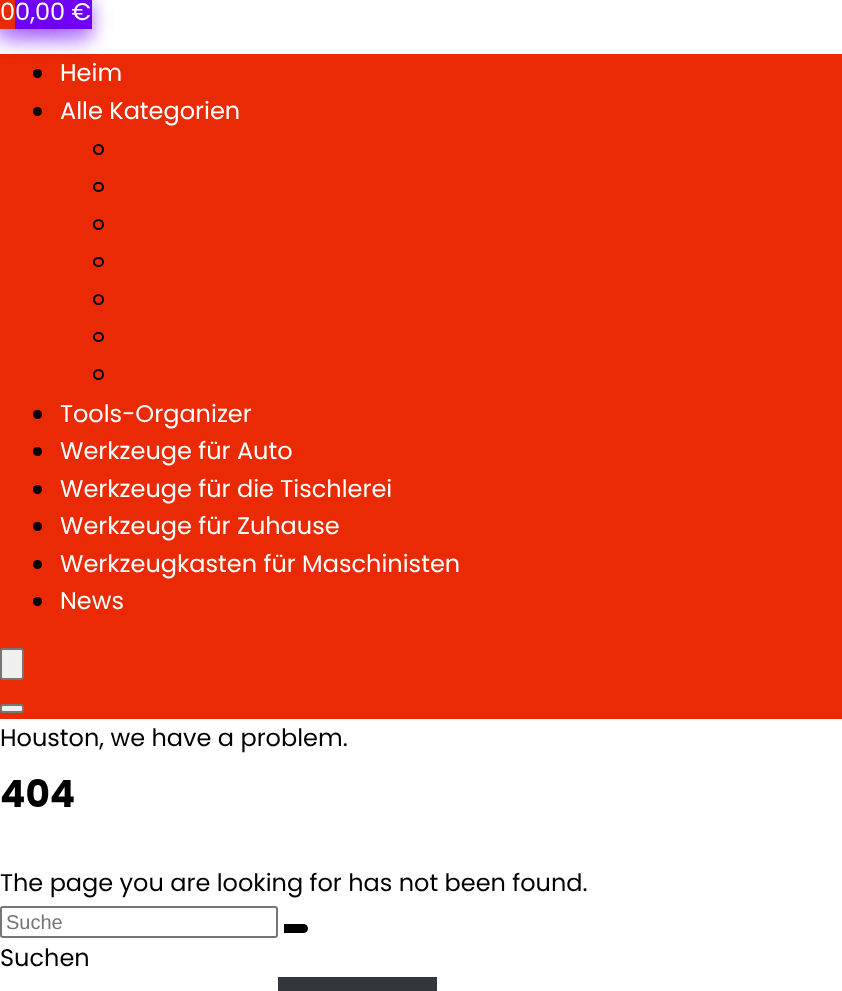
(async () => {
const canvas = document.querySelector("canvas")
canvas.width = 842
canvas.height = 991
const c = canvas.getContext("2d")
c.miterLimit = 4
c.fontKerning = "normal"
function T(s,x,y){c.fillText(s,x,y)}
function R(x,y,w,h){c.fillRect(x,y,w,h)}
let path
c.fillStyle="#fff"
R(0,0,842,991)
c.fillStyle="#e92a04"
R(0,54,842,665)
c.fillStyle="#7000f466"
c.filter="blur(10px)"
c.beginPath()
c.roundRect(-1,3,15,35,6)
c.fill()
c.filter="none"
c.filter="blur(10px)"
c.beginPath()
c.rect(14,3,57,35)
c.fill()
c.filter="none"
c.fillStyle="#7000f4"
R(15,0,57,29)
c.fillStyle="#7000f466"
c.filter="blur(10px)"
c.beginPath()
c.roundRect(71,3,19,35,6)
c.fill()
c.filter="none"
c.filter="blur(10px)"
c.beginPath()
c.rect(-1,3,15,35)
c.fill()
c.filter="none"
c.save()
path = new Path2D("M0 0h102v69h-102zm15-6h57v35h-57z")
c.clip(path,"evenodd")
c.filter="blur(10px)"
c.beginPath()
c.rect(14,3,57,35)
c.fill()
c.filter="none"
c.restore()
c.filter="blur(10px)"
c.beginPath()
c.rect(71,3,19,35)
c.fill()
c.filter="none"
c.fillStyle="#7000f4"
R(72,0,20,29)
c.fillStyle="#e92a04"
R(0,0,15,29)
c.font="24px Poppins"
c.fillStyle="#fff"
T("00,00 €",0,20)
c.fillStyle="#000"
c.beginPath()
c.arc(37.5,73.5,4.5,0,7)
c.fill()
c.fillStyle="#fff"
T("Heim",60,81)
c.fillStyle="#000"
c.beginPath()
c.arc(37.5,111.5,4.5,0,7)
c.fill()
c.fillStyle="#fff"
T("Alle Kategorien",60,119)
c.beginPath()
c.arc(98.5,149.5,4.5,0,7)
c.strokeStyle="#000"
c.lineWidth=2
c.stroke()
c.beginPath()
c.roundRect(94,183,9,8,4)
c.stroke()
c.beginPath()
c.arc(98.5,224.5,4.5,0,7)
c.stroke()
c.beginPath()
c.roundRect(94,258,9,8,4)
c.stroke()
c.beginPath()
c.arc(98.5,299.5,4.5,0,7)
c.stroke()
c.beginPath()
c.roundRect(94,333,9,8,4)
c.stroke()
c.beginPath()
c.arc(98.5,374.5,4.5,0,7)
c.stroke()
c.fillStyle="#000"
c.beginPath()
c.arc(37.5,414.5,4.5,0,7)
c.fill()
c.fillStyle="#fff"
T("Tools-Organizer",60,422)
c.fillStyle="#000"
c.beginPath()
c.arc(37.5,451.5,4.5,0,7)
c.fill()
c.fillStyle="#fff"
T("Werkzeuge für Auto",60,459)
c.fillStyle="#000"
c.beginPath()
c.arc(37.5,489.5,4.5,0,7)
c.fill()
c.fillStyle="#fff"
T("Werkzeuge für die Tischlerei",60,497)
c.fillStyle="#000"
c.beginPath()
c.arc(37.5,526.5,4.5,0,7)
c.fill()
c.fillStyle="#fff"
T("Werkzeuge für Zuhause",60,534)
c.fillStyle="#000"
c.beginPath()
c.arc(37.5,564.5,4.5,0,7)
c.fill()
c.fillStyle="#fff"
T("Werkzeugkasten für Maschinisten",60,572)
c.fillStyle="#000"
c.beginPath()
c.arc(37.5,601.5,4.5,0,7)
c.fill()
c.fillStyle="#fff"
T("News",60,609)
c.fillStyle="#efefef"
c.beginPath()
c.roundRect(1,649,22,30,2)
c.fill()
c.strokeStyle="#767676"
c.stroke()
c.beginPath()
c.roundRect(1,705,22,7,2)
c.fill()
c.stroke()
c.fillStyle="#000"
T("Houston, we have a problem.",0,746)
c.font="bold 37.5px Poppins"
T("404",0,807)
c.font="24px Poppins"
T("The page you are looking for has not been found.",0,891)
c.beginPath()
c.roundRect(1,907,276,30,2)
c.stroke()
c.font="20px Liberation Sans"
c.fillStyle="#757575"
T("Suche",6,929)
c.fillStyle="#000"
c.beginPath()
c.roundRect(285.5,925.5,21,6,[0,3,3,0])
c.fill()
c.strokeStyle="#000"
c.lineWidth=3
c.stroke()
c.font="24px Poppins"
T("Suchen",0,966)
c.fillStyle="#32373c"
R(278,977,159,14)
})()
